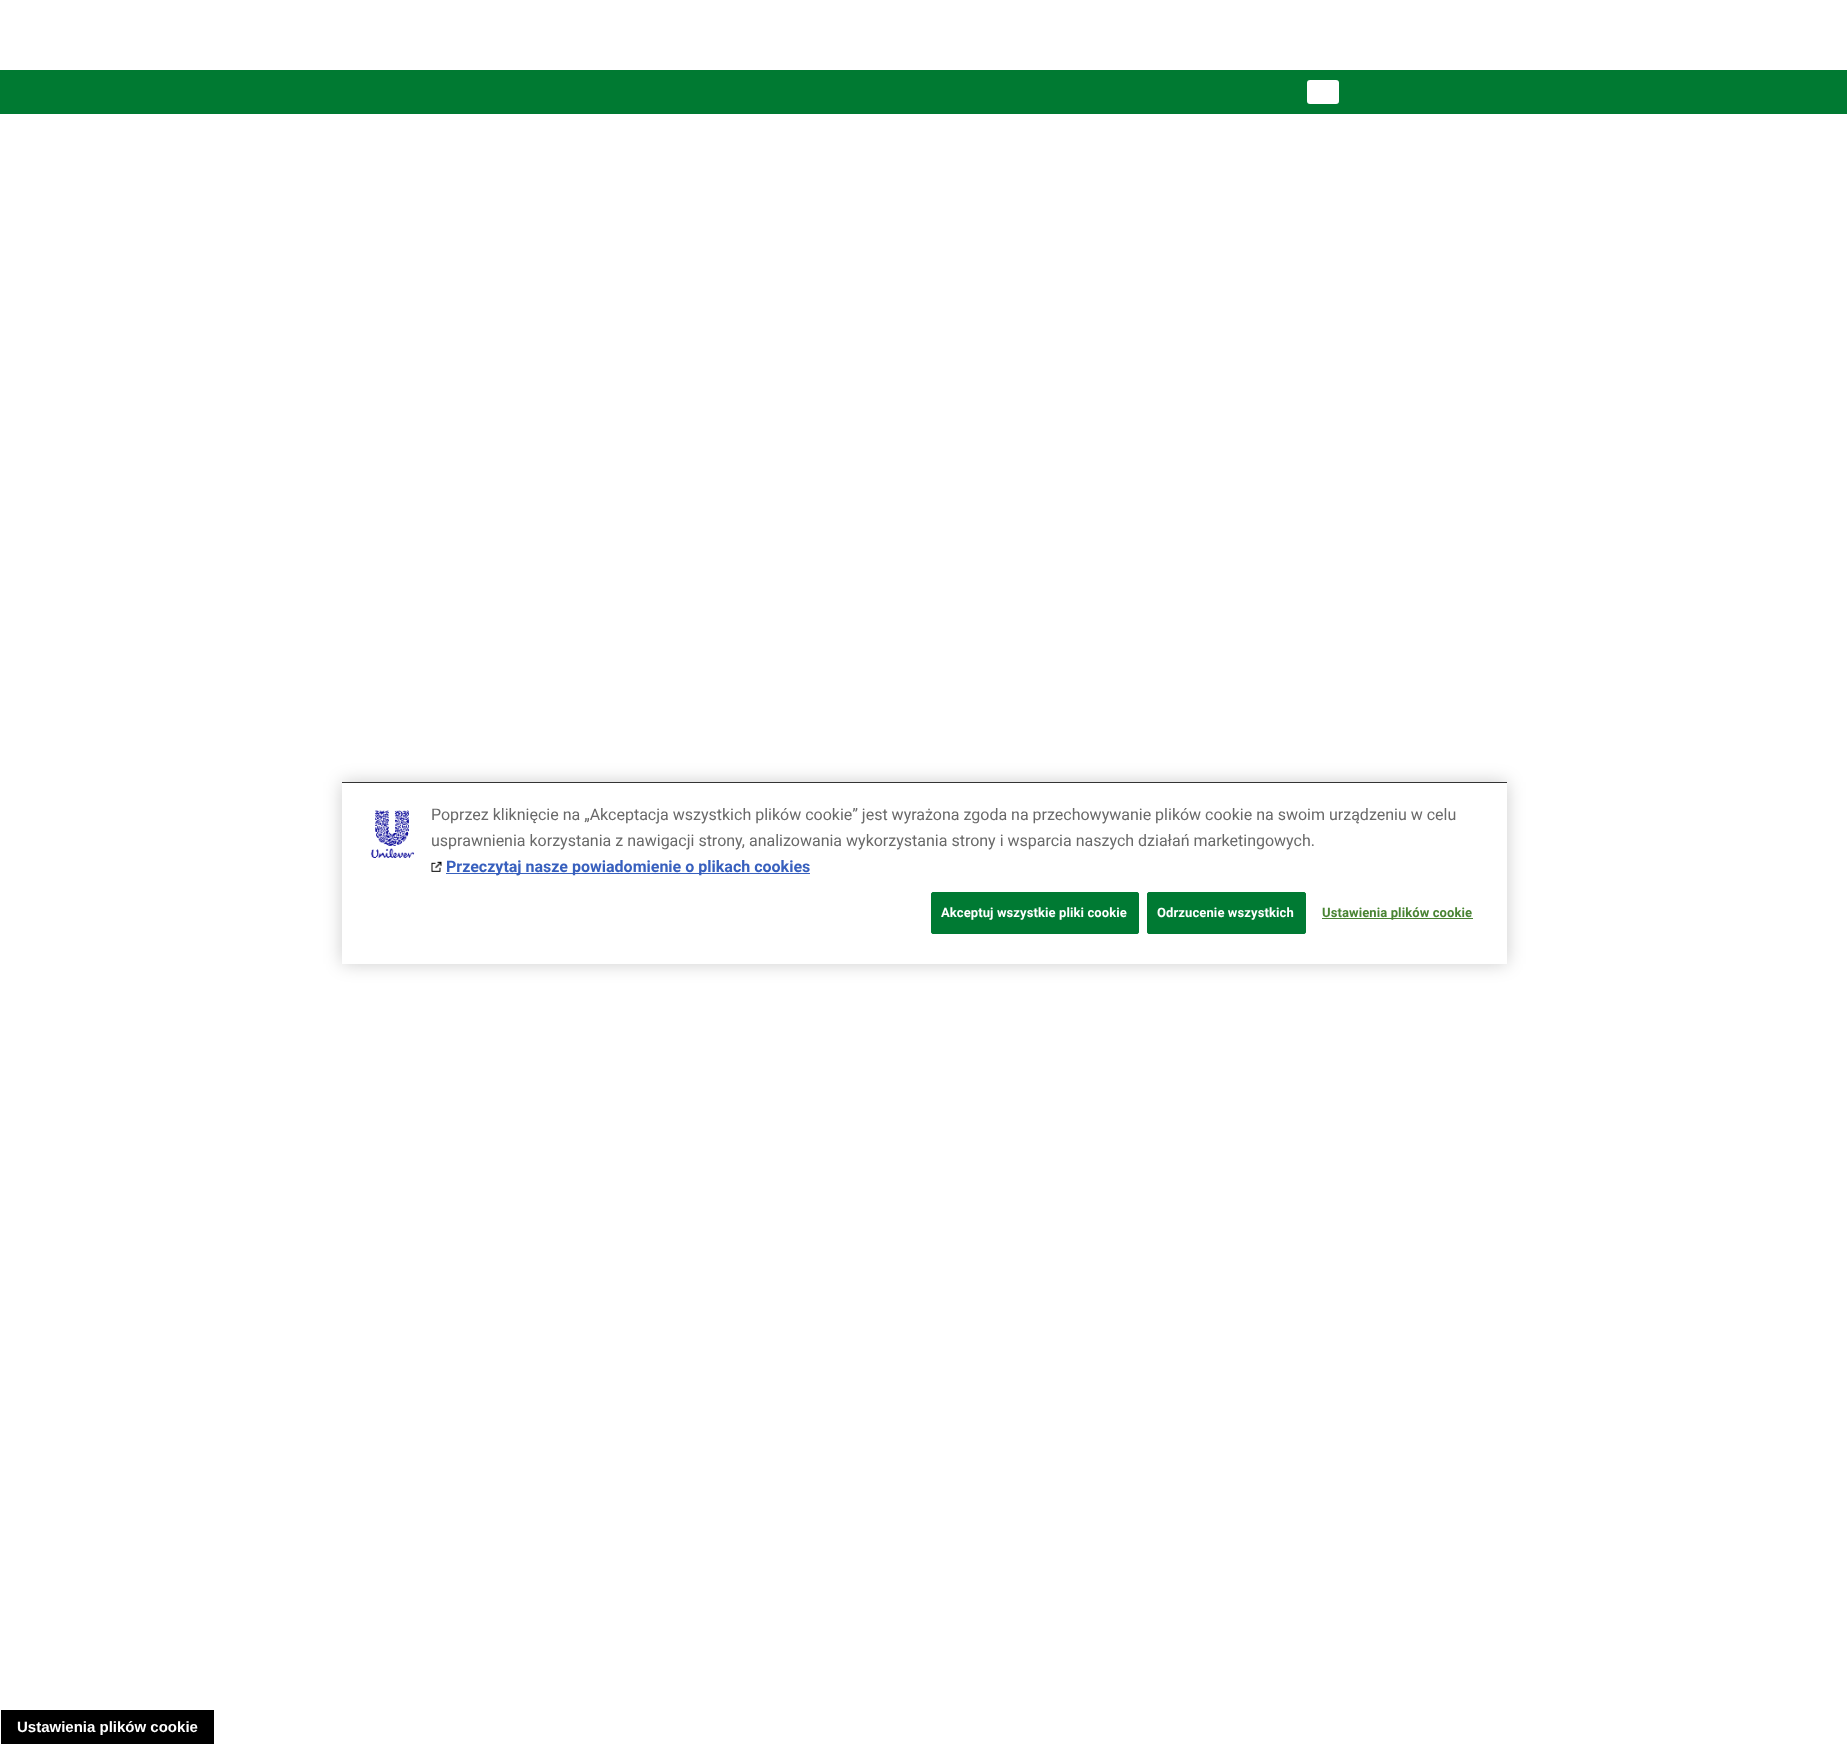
<!DOCTYPE html>
<meta charset="utf-8">
<style>body { margin: 0 } canvas { display: block }</style>
<canvas id="canvas" width="1847" height="1745"></canvas>
<img id="img1" src="images/1.png" hidden>
<img id="img2" src="images/2.png" hidden>
<script>
window.onload = function () {
    const canvas = document.getElementById('canvas');
    const context = canvas.getContext('2d');
    context.miterLimit = 4;
    context.fontKerning = 'normal';

    context.fillStyle = 'rgb(255, 255, 255)';
    context.fillRect(0, 0, 1847, 1745);
    context.fillStyle = 'rgb(0, 122, 50)';
    context.fillRect(0, 70, 1847, 44);
    context.fillStyle = 'rgb(255, 255, 255)';
    context.beginPath();
    context.roundRect(1307, 80, 32, 24, 3);
    context.fill();
    context.fillStyle = 'rgba(0, 0, 0, 0.2)';
    context.filter = 'blur(9px)';
    context.beginPath();
    context.rect(342, 782, 1165, 182);
    context.fill();
    context.filter = 'none';
    context.fillStyle = 'rgb(255, 255, 255)';
    context.fillRect(342, 783, 1165, 181);
    context.fillStyle = 'rgb(51, 51, 51)';
    context.fillRect(342, 782, 1165, 1);
    context.drawImage(document.getElementById('img1'), 370, 810, 45, 48);
    context.drawImage(document.getElementById('img2'), 431, 861, 11, 11);
    context.fillStyle = 'rgb(56, 96, 190)';
    context.fillRect(446, 873, 364, 1);
    context.fillStyle = 'rgb(0, 122, 51)';
    context.beginPath();
    context.roundRect(931.5, 892.5, 207, 41, 1.5);
    context.fill();
    context.strokeStyle = 'rgb(0, 122, 51)';
    context.stroke();
    context.beginPath();
    context.roundRect(1147.5, 892.5, 158, 41, 1.5);
    context.fill();
    context.stroke();
    context.fillStyle = 'rgb(73, 132, 51)';
    context.fillRect(1322, 918, 151, 1);
    context.fillStyle = 'rgb(0, 0, 0)';
    context.fillRect(1, 1710, 213, 34);
    context.font = '16px Roboto';
    context.fillStyle = 'rgb(105, 105, 105)';
    context.fillText('Poprzez kliknięcie na „Akceptacja wszystkich plików cookie” jest wyrażona zgoda na przechowywanie plików cookie na swoim urządzeniu w celu', 431, 820);
    context.fillText('usprawnienia korzystania z nawigacji strony, analizowania wykorzystania strony i wsparcia naszych działań marketingowych.', 431, 846);
    context.font = 'bold 16px Roboto';
    context.fillStyle = 'rgb(56, 96, 190)';
    context.fillText('Przeczytaj nasze powiadomienie o plikach cookies', 446, 872);
    context.letterSpacing = '0.1px';
    context.font = 'bold 13px Roboto';
    context.fillStyle = 'rgb(255, 255, 255)';
    context.fillText('Akceptuj wszystkie pliki cookie', 941, 917);
    context.fillText('Odrzucenie wszystkich', 1157, 917);
    context.fillStyle = 'rgb(73, 132, 51)';
    context.fillText('Ustawienia plików cookie', 1322, 917);
    context.letterSpacing = '0px';
    context.font = 'bold 15px Liberation Sans';
    context.fillStyle = 'rgb(255, 255, 255)';
    context.fillText('Ustawienia plików cookie', 17, 1732);
};
</script>
